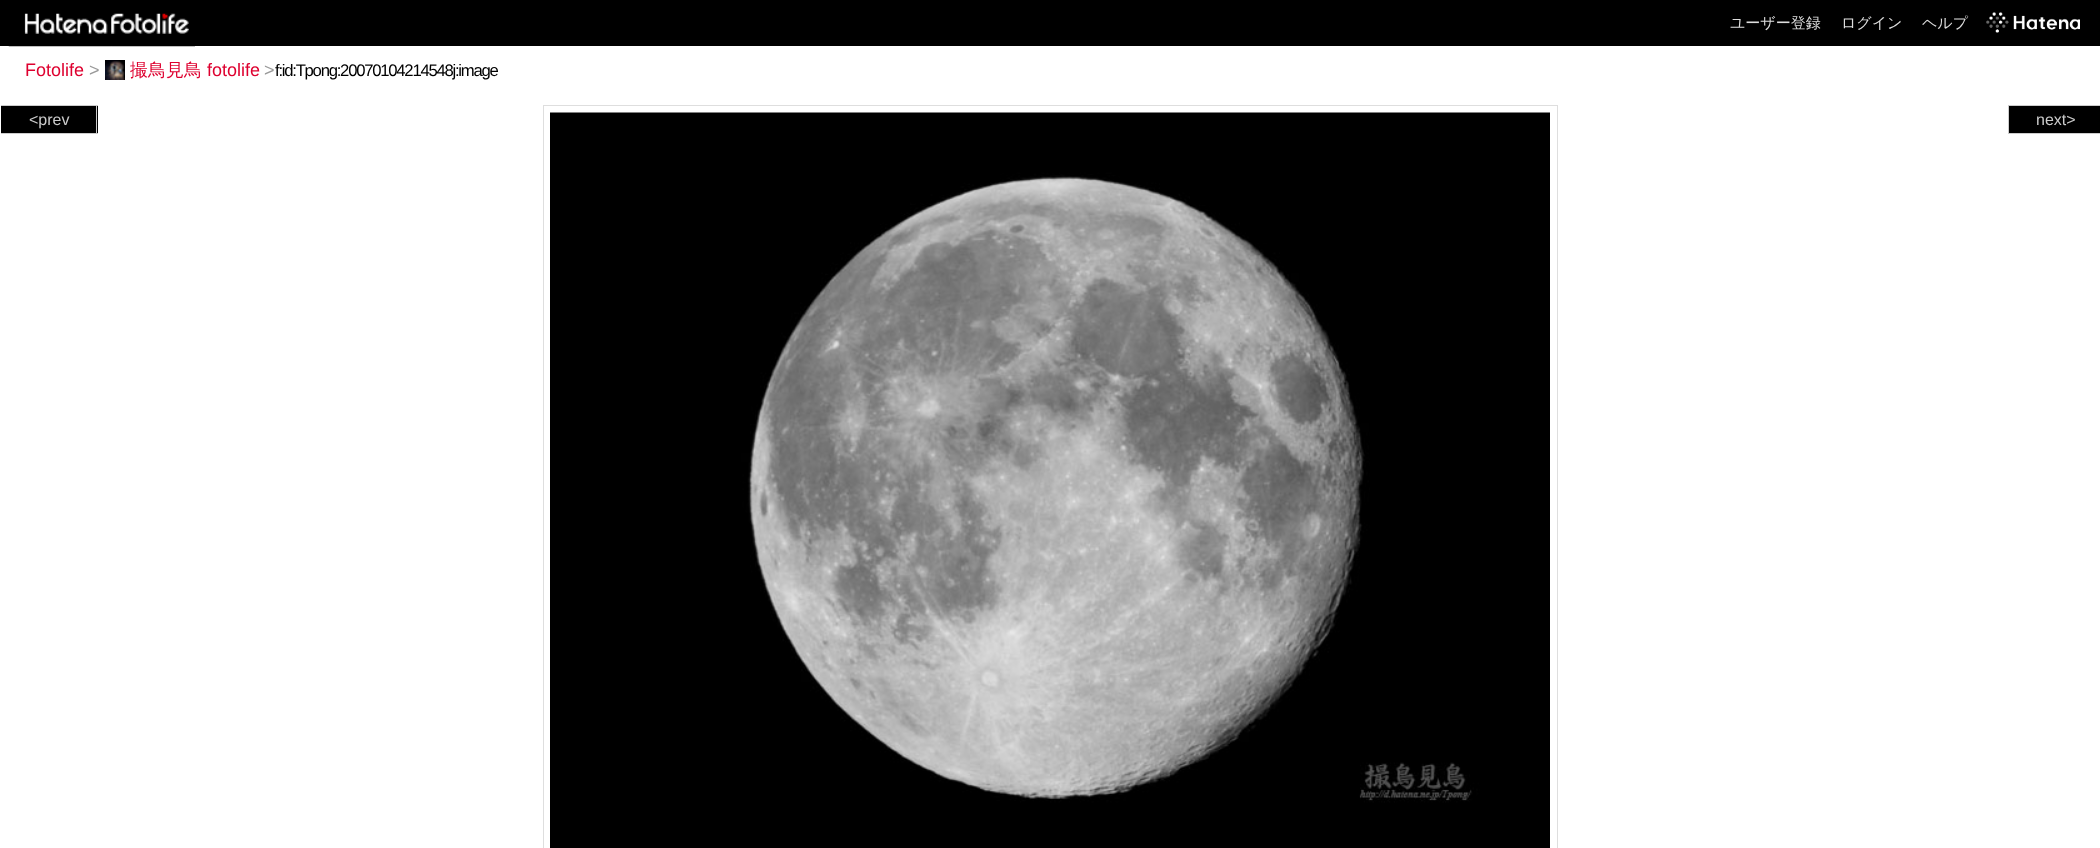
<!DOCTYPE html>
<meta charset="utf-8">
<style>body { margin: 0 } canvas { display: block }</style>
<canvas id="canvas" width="2100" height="848"></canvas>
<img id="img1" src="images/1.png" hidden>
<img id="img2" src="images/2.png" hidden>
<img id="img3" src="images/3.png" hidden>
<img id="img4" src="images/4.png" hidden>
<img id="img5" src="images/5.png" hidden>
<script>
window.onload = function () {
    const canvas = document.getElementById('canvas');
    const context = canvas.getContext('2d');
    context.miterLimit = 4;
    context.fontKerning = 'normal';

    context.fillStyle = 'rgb(255, 255, 255)';
    context.fillRect(0, 0, 2100, 848);
    context.fillStyle = 'rgb(0, 0, 0)';
    context.fillRect(0, 0, 2100, 46);
    context.drawImage(document.getElementById('img1'), 8, 13, 104, 34);
    context.drawImage(document.getElementById('img2'), 111, 13, 84, 34);
    context.drawImage(document.getElementById('img3'), 1986, 12, 94, 21);
    context.drawImage(document.getElementById('img4'), 105, 60, 20, 20);
    context.fillRect(1, 106, 97, 27);
    context.fillStyle = 'rgb(204, 204, 204)';
    context.fillRect(1, 105, 97, 1);
    context.fillRect(96, 105, 1, 29);
    context.fillRect(1, 133, 97, 1);
    context.strokeStyle = 'rgb(222, 222, 222)';
    context.strokeRect(543.5, 105.5, 1014, 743);
    context.drawImage(document.getElementById('img5'), 550, 112, 1000, 736);
    context.fillStyle = 'rgb(0, 0, 0)';
    context.fillRect(2009, 106, 91, 27);
    context.fillStyle = 'rgb(204, 204, 204)';
    context.fillRect(2008, 105, 92, 1);
    context.fillRect(2008, 133, 92, 1);
    context.fillRect(2008, 105, 1, 29);
    context.font = '500 15px WenQuanYi Zen Hei';
    context.fillStyle = 'rgb(221, 221, 221)';
    context.fillText('ユーザー登録', 1730, 28);
    context.fillText('ログイン', 1841, 28);
    context.fillText('ヘルプ', 1922, 28);
    context.font = '18px Liberation Sans';
    context.fillStyle = 'rgb(222, 0, 47)';
    context.fillText('Fotolife', 25, 76);
    context.fillStyle = 'rgb(153, 153, 153)';
    context.fillText('>', 89, 76);
    context.font = '500 18px WenQuanYi Zen Hei';
    context.fillStyle = 'rgb(222, 0, 47)';
    context.fillText('撮鳥見鳥', 130, 76);
    context.font = '18px Liberation Sans';
    context.fillText('fotolife', 207, 76);
    context.fillStyle = 'rgb(153, 153, 153)';
    context.fillText('>', 264, 76);
    context.letterSpacing = '-1.25px';
    context.font = '16.7px Liberation Sans';
    context.fillStyle = 'rgb(0, 0, 0)';
    context.fillText('f:id:Tpong:20070104214548j:image', 275, 76);
    context.letterSpacing = '0px';
    context.font = '16px Liberation Sans';
    context.fillStyle = 'rgb(204, 204, 204)';
    context.fillText('<prev', 29, 125);
    context.fillText('next>', 2036, 125);
};
</script>
